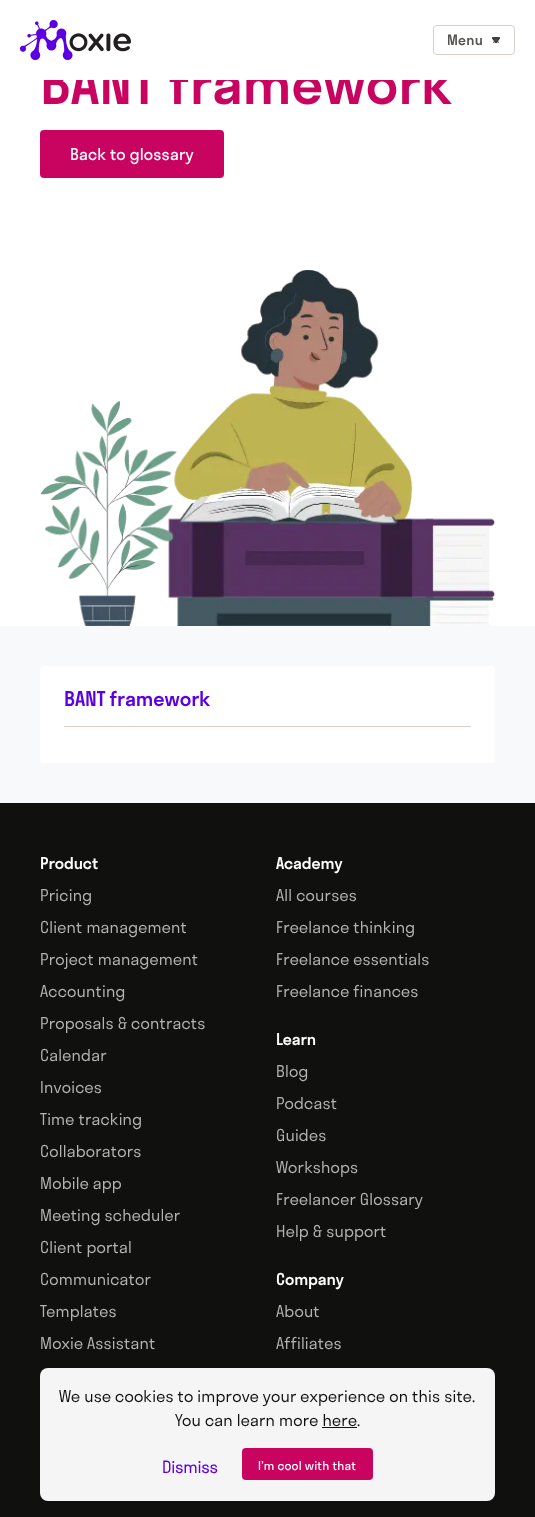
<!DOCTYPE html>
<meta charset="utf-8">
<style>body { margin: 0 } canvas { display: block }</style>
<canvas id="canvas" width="535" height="1517"></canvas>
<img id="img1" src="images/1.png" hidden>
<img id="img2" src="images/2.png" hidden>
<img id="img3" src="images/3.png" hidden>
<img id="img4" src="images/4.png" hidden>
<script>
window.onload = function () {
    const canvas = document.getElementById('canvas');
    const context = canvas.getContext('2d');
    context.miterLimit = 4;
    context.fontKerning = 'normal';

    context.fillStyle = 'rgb(255, 255, 255)';
    context.fillRect(0, 0, 535, 1517);
    context.drawImage(document.getElementById('img1'), 20, 20, 111, 40);
    context.beginPath();
    context.roundRect(433.5, 25.5, 81, 29, 3.5);
    context.strokeStyle = 'rgb(214, 209, 203)';
    context.stroke();
    context.drawImage(document.getElementById('img2'), 492, 37, 8, 7);
    context.drawImage(document.getElementById('img3'), 493, 37, 6, 6);
    context.fillStyle = 'rgb(201, 3, 96)';
    context.beginPath();
    context.roundRect(40, 130, 184, 48, 4);
    context.fill();
    context.drawImage(document.getElementById('img4'), 40, 270, 455, 356);
    context.fillStyle = 'rgb(248, 249, 250)';
    context.fillRect(0, 626, 535, 177);
    context.fillStyle = 'rgb(255, 255, 255)';
    context.beginPath();
    context.roundRect(40, 666, 455, 97, 4);
    context.fill();
    context.fillStyle = 'rgb(214, 209, 203)';
    context.fillRect(64, 726, 407, 1);
    context.fillStyle = 'rgb(16, 17, 15)';
    context.fillRect(0, 803, 535, 714);
    context.fillStyle = 'rgb(245, 245, 245)';
    context.beginPath();
    context.roundRect(40, 1368, 455, 133, 8);
    context.fill();
    context.fillStyle = 'rgb(16, 17, 15)';
    context.fillRect(322, 1427, 35, 1);
    context.fillStyle = 'rgb(201, 3, 96)';
    context.beginPath();
    context.roundRect(242, 1448, 131, 32, 4);
    context.fill();
    context.letterSpacing = '0.2px';
    context.font = '500 14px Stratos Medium';
    context.fillStyle = 'rgb(86, 84, 81)';
    context.fillText('Menu', 447, 45);
    context.letterSpacing = '-0.1px';
    context.font = '500 56px Stratos Medium';
    context.fillStyle = 'rgb(201, 3, 96)';
    context.fillText('BANT framework', 40, 104);
    context.fillStyle = 'rgb(255, 255, 255)';
    context.fillRect(43, 61, 408, 19);
    context.letterSpacing = '0.2px';
    context.font = '16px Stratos';
    context.fillText('Back to glossary', 70, 160);
    context.letterSpacing = '-0.1px';
    context.font = '500 20px Stratos Medium';
    context.fillStyle = 'rgb(92, 0, 226)';
    context.fillText('BANT framework', 64, 706);
    context.font = '500 16px Stratos Medium';
    context.fillStyle = 'rgb(255, 255, 255)';
    context.fillText('Product', 40, 869);
    context.letterSpacing = '0.2px';
    context.font = '300 16px "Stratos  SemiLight"';
    context.fillStyle = 'rgb(179, 179, 179)';
    context.fillText('Pricing', 40, 901);
    context.fillText('Client management', 40, 933);
    context.fillText('Project management', 40, 965);
    context.fillText('Accounting', 40, 997);
    context.fillText('Proposals & contracts', 40, 1029);
    context.fillText('Calendar', 40, 1061);
    context.fillText('Invoices', 40, 1093);
    context.fillText('Time tracking', 40, 1125);
    context.fillText('Collaborators', 40, 1157);
    context.fillText('Mobile app', 40, 1189);
    context.fillText('Meeting scheduler', 40, 1221);
    context.fillText('Client portal', 40, 1253);
    context.fillText('Communicator', 40, 1285);
    context.fillText('Templates', 40, 1317);
    context.fillText('Moxie Assistant', 40, 1349);
    context.letterSpacing = '-0.1px';
    context.font = '500 16px Stratos Medium';
    context.fillStyle = 'rgb(255, 255, 255)';
    context.fillText('Academy', 276, 869);
    context.letterSpacing = '0.2px';
    context.font = '300 16px "Stratos  SemiLight"';
    context.fillStyle = 'rgb(179, 179, 179)';
    context.fillText('All courses', 276, 901);
    context.fillText('Freelance thinking', 276, 933);
    context.fillText('Freelance essentials', 276, 965);
    context.fillText('Freelance finances', 276, 997);
    context.letterSpacing = '-0.1px';
    context.font = '500 16px Stratos Medium';
    context.fillStyle = 'rgb(255, 255, 255)';
    context.fillText('Learn', 276, 1045);
    context.letterSpacing = '0.2px';
    context.font = '300 16px "Stratos  SemiLight"';
    context.fillStyle = 'rgb(179, 179, 179)';
    context.fillText('Blog', 276, 1077);
    context.fillText('Podcast', 276, 1109);
    context.fillText('Guides', 276, 1141);
    context.fillText('Workshops', 276, 1173);
    context.fillText('Freelancer Glossary', 276, 1205);
    context.fillText('Help & support', 276, 1237);
    context.letterSpacing = '-0.1px';
    context.font = '500 16px Stratos Medium';
    context.fillStyle = 'rgb(255, 255, 255)';
    context.fillText('Company', 276, 1285);
    context.letterSpacing = '0.2px';
    context.font = '300 16px "Stratos  SemiLight"';
    context.fillStyle = 'rgb(179, 179, 179)';
    context.fillText('About', 276, 1317);
    context.fillText('Affiliates', 276, 1349);
    context.fillStyle = 'rgb(16, 17, 15)';
    context.fillText('We use cookies to improve your experience on this site.', 59, 1402);
    context.fillText('You can learn more here.', 175, 1426);
    context.font = 'bold 16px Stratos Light';
    context.fillStyle = 'rgb(92, 0, 226)';
    context.fillText('Dismiss', 162, 1473);
    context.font = '12px Stratos';
    context.fillStyle = 'rgb(255, 255, 255)';
    context.fillText('I’m cool with that', 258, 1470);
};
</script>
